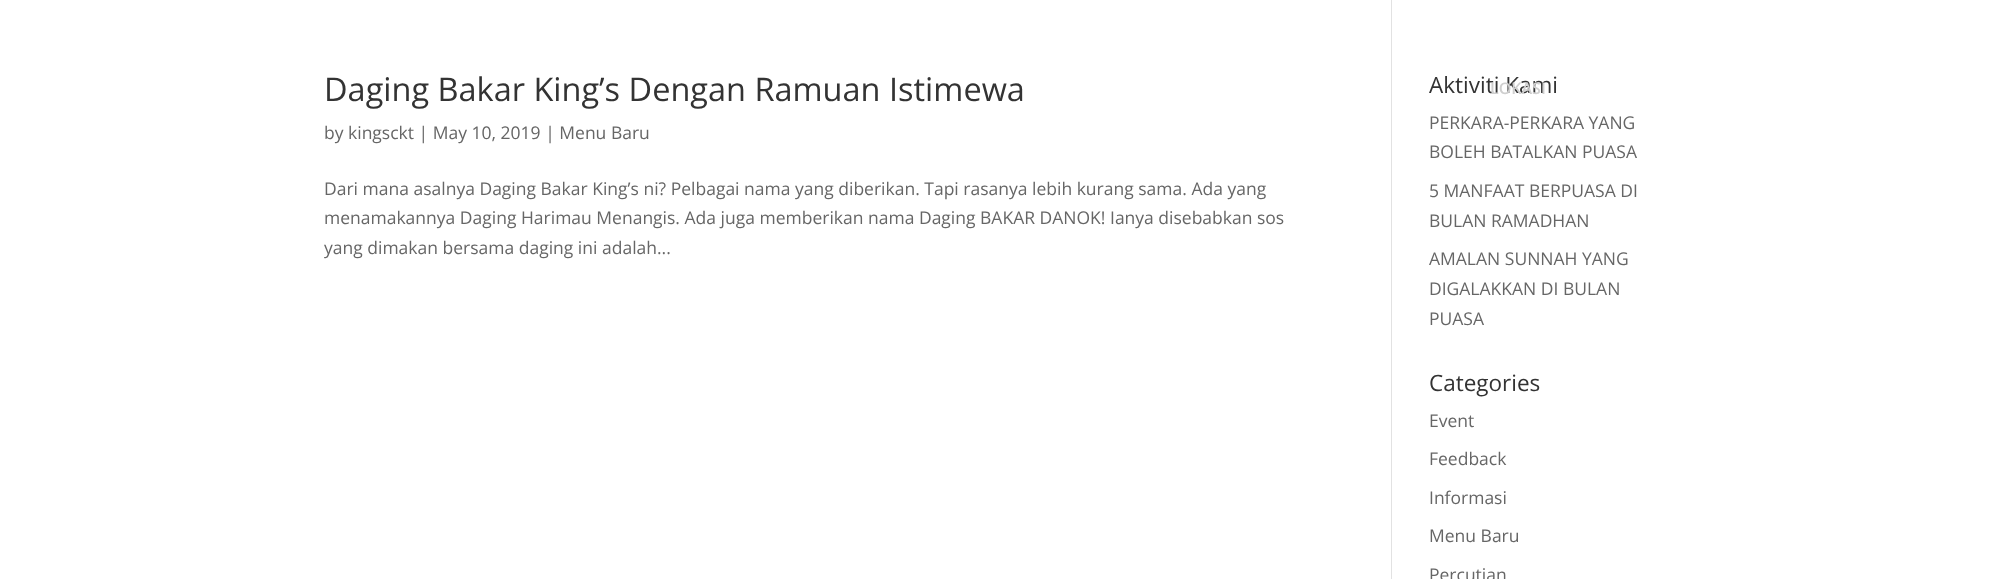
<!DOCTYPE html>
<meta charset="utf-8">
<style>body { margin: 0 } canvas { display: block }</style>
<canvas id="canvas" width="1997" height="579"></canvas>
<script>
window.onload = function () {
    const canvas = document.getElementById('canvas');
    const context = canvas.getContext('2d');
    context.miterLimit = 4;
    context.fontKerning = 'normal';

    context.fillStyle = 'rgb(255, 255, 255)';
    context.fillRect(0, 0, 1997, 579);
    context.fillStyle = 'rgb(226, 226, 226)';
    context.fillRect(1391, 0, 1, 579);
    context.font = '32.5px Open Sans';
    context.fillStyle = 'rgb(51, 51, 51)';
    context.fillText('Daging Bakar King’s Dengan Ramuan Istimewa', 324, 101);
    context.font = '17.5px Open Sans';
    context.fillStyle = 'rgb(102, 102, 102)';
    context.fillText('by kingsckt | May 10, 2019 | Menu Baru', 324, 139);
    context.fillText('Dari mana asalnya Daging Bakar King’s ni? Pelbagai nama yang diberikan. Tapi rasanya lebih kurang sama. Ada yang', 324, 195);
    context.fillText('menamakannya Daging Harimau Menangis. Ada juga memberikan nama Daging BAKAR DANOK! Ianya disebabkan sos', 324, 224);
    context.fillText('yang dimakan bersama daging ini adalah...', 324, 254);
    context.font = '22.5px Open Sans';
    context.fillStyle = 'rgb(51, 51, 51)';
    context.fillText('Aktiviti Kami', 1429, 93);
    context.font = '17.5px Open Sans';
    context.fillStyle = 'rgb(102, 102, 102)';
    context.fillText('PERKARA-PERKARA YANG', 1429, 129);
    context.fillText('BOLEH BATALKAN PUASA', 1429, 158);
    context.fillText('5 MANFAAT BERPUASA DI', 1429, 197);
    context.fillText('BULAN RAMADHAN', 1429, 227);
    context.fillText('AMALAN SUNNAH YANG', 1429, 265);
    context.fillText('DIGALAKKAN DI BULAN', 1429, 295);
    context.fillText('PUASA', 1429, 325);
    context.font = '22.5px Open Sans';
    context.fillStyle = 'rgb(51, 51, 51)';
    context.fillText('Categories', 1429, 391);
    context.font = '17.5px Open Sans';
    context.fillStyle = 'rgb(102, 102, 102)';
    context.fillText('Event', 1429, 427);
    context.fillText('Feedback', 1429, 465);
    context.fillText('Informasi', 1429, 504);
    context.fillText('Menu Baru', 1429, 542);
    context.fillText('Percutian', 1429, 581);
    context.font = '600 16px Open Sans';
    context.fillStyle = 'rgb(207, 207, 207)';
    context.fillText('LOKASI', 1490, 94);
};
</script>
